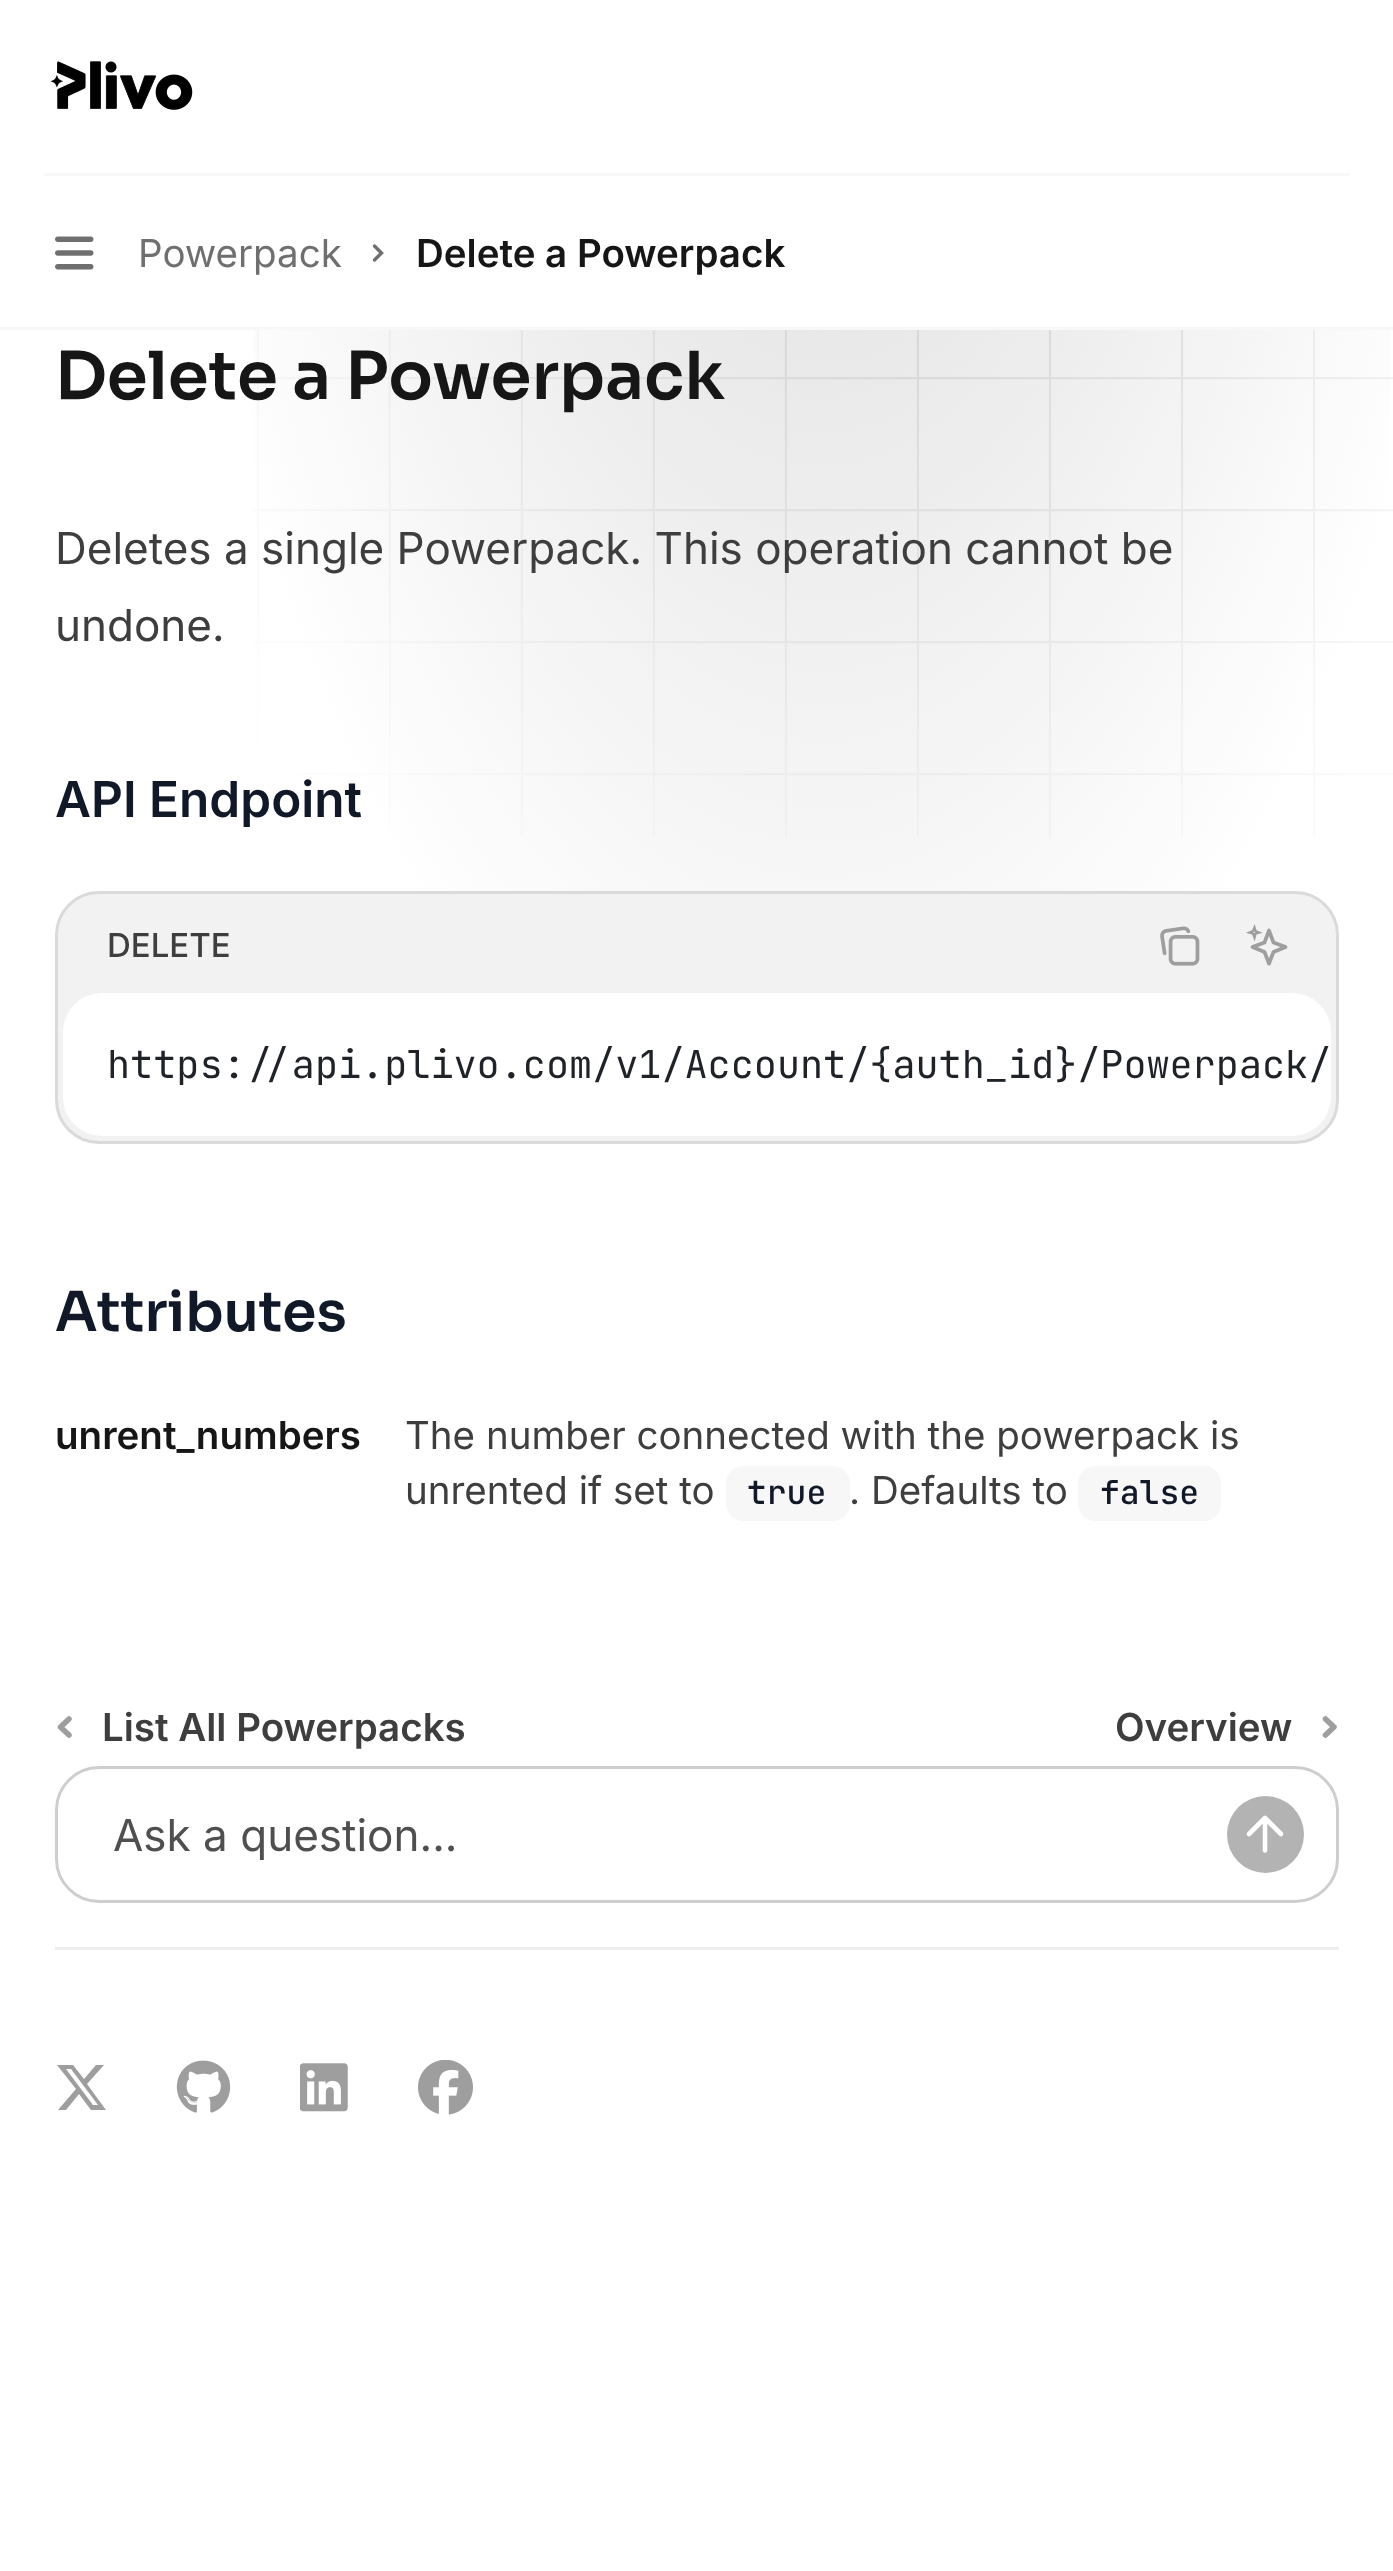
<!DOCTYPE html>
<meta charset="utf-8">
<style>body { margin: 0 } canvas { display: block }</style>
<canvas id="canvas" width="1393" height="2571"></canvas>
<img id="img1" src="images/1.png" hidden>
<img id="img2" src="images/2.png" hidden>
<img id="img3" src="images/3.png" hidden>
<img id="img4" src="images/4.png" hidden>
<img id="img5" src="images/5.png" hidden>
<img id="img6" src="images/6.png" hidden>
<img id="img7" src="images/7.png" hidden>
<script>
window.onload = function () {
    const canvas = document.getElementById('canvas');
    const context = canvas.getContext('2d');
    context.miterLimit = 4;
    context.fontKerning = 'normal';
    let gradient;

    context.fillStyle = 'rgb(255, 255, 255)';
    context.fillRect(0, 0, 1393, 2571);
    context.fillStyle = 'rgb(248, 248, 248)';
    context.fillRect(44, 173, 1306, 3);
    context.drawImage(document.getElementById('img1'), 50, 61, 143, 49);
    context.drawImage(document.getElementById('img2'), 55, 236, 39, 34);
    context.beginPath();
    context.moveTo(374.5, 246);
    context.lineTo(381.5, 253);
    context.lineTo(374.5, 260);
    context.strokeStyle = 'rgb(111, 111, 111)';
    context.lineWidth = 3.4;
    context.lineCap = 'round';
    context.stroke();
    context.fillRect(0, 327, 1393, 3);
    gradient = context.createRadialGradient(822, -171.49, 0, 822, -171.49, 692);
    gradient.addColorStop(0.39, 'rgb(230, 230, 230)');
    gradient.addColorStop(1, 'rgb(255, 255, 255)');
    context.fillStyle = gradient;
    context.beginPath();
    context.rect(253, 330, 1137, 782);
    context.save();
    context.clip();
    context.scale(1, 1606 / 692);
    context.fillRect(0, 0, 1393, 1108);
    context.restore();
    context.drawImage(document.getElementById('img3'), 253, 330, 1140, 507);
    context.fillStyle = 'rgb(242, 242, 242)';
    context.beginPath();
    context.roundRect(55, 891, 1284, 253, 44);
    context.fill();
    context.beginPath();
    context.roundRect(56.5, 892.5, 1281, 250, 42.5);
    context.strokeStyle = 'rgba(10, 10, 10, 0.1)';
    context.lineWidth = 3;
    context.stroke();
    context.drawImage(document.getElementById('img4'), 1160, 926, 40, 40);
    context.beginPath();
    context.moveTo(1254.5, 927.5);
    context.lineTo(1255.5, 931);
    context.lineTo(1259, 932.5);
    context.lineTo(1255.5, 933.5);
    context.lineTo(1254.5, 937.5);
    context.lineTo(1253, 933.5);
    context.lineTo(1249.5, 932.5);
    context.lineTo(1253, 931);
    context.closePath();
    context.strokeStyle = 'rgb(158, 158, 158)';
    context.lineWidth = 2.4;
    context.lineCap = 'butt';
    context.stroke();
    context.beginPath();
    context.moveTo(1269, 930.5);
    context.lineTo(1273.5, 942.5);
    context.lineTo(1285.5, 947);
    context.lineTo(1273.5, 952);
    context.lineTo(1269, 963.5);
    context.lineTo(1264.5, 952);
    context.lineTo(1252.5, 947);
    context.lineTo(1264.5, 942.5);
    context.closePath();
    context.lineWidth = 3.7;
    context.lineCap = 'round';
    context.lineJoin = 'round';
    context.stroke();
    context.fillStyle = 'rgb(255, 255, 255)';
    context.beginPath();
    context.roundRect(63, 993, 1268, 143, 39);
    context.fill();
    context.fillStyle = 'rgb(247, 247, 247)';
    context.beginPath();
    context.roundRect(726, 1466, 124, 55, 17);
    context.fill();
    context.beginPath();
    context.roundRect(1078, 1466, 143, 55, 17);
    context.fill();
    context.beginPath();
    context.moveTo(69, 1719);
    context.lineTo(60.5, 1727);
    context.lineTo(69, 1735);
    context.lineWidth = 5.5;
    context.stroke();
    context.beginPath();
    context.moveTo(1325.5, 1735);
    context.lineTo(1334, 1727);
    context.lineTo(1325.5, 1719);
    context.stroke();
    context.beginPath();
    context.roundRect(56.5, 1767.5, 1281, 134, 42.5);
    context.strokeStyle = 'rgb(206, 206, 206)';
    context.lineWidth = 3;
    context.lineJoin = 'miter';
    context.stroke();
    context.fillStyle = 'rgb(179, 179, 179)';
    context.beginPath();
    context.arc(1265.5, 1834.5, 38.5, 0, 2 * Math.PI);
    context.fill();
    context.beginPath();
    context.moveTo(1249, 1834);
    context.lineTo(1265, 1818);
    context.lineTo(1281, 1834);
    context.moveTo(1265, 1850.5);
    context.lineTo(1265, 1818);
    context.strokeStyle = 'rgb(255, 255, 255)';
    context.lineWidth = 4.6;
    context.lineJoin = 'round';
    context.stroke();
    context.fillStyle = 'rgb(238, 238, 238)';
    context.fillRect(55, 1947, 1284, 3);
    context.fillStyle = 'rgb(158, 158, 158)';
    context.beginPath();
    context.moveTo(96, 2065);
    context.lineTo(104, 2065);
    context.lineTo(87, 2084);
    context.lineTo(106, 2110);
    context.lineTo(91, 2110);
    context.lineTo(79, 2094);
    context.lineTo(66, 2110);
    context.lineTo(58, 2110);
    context.lineTo(76, 2089);
    context.lineTo(57, 2065);
    context.lineTo(73, 2065);
    context.lineTo(84, 2079);
    context.closePath();
    context.moveTo(93, 2105);
    context.lineTo(98, 2105);
    context.lineTo(71, 2069);
    context.lineTo(66, 2069);
    context.closePath();
    context.fill();
    context.drawImage(document.getElementById('img5'), 176, 2060, 55, 53);
    context.drawImage(document.getElementById('img6'), 300, 2063, 48, 49);
    context.drawImage(document.getElementById('img7'), 418, 2060, 55, 55);
    context.font = '38.5px Inter';
    context.fillStyle = 'rgb(111, 111, 111)';
    context.fillText('Powerpack', 138, 267);
    context.font = '600 38.5px Inter';
    context.fillStyle = 'rgb(22, 22, 22)';
    context.fillText('Delete a Powerpack', 416, 267);
    context.font = '600 66px Sora';
    context.fillText('Delete a Powerpack', 55, 399);
    context.font = '44px Inter';
    context.fillStyle = 'rgb(62, 62, 62)';
    context.fillText('Deletes a single Powerpack. This operation cannot be', 55, 564);
    context.fillText('undone.', 55, 641);
    context.font = '600 49.5px Inter';
    context.fillStyle = 'rgb(17, 24, 39)';
    context.fillText('API Endpoint', 55, 817);
    context.font = '500 33px Inter';
    context.fillStyle = 'rgb(62, 62, 62)';
    context.fillText('DELETE', 107, 957);
    context.font = '38.5px JetBrains Mono';
    context.fillStyle = 'rgb(31, 35, 40)';
    context.fillText('https://api.plivo.com/v1/Account/{auth_id}/Powerpack/', 107, 1078);
    context.font = '600 55px Sora';
    context.fillStyle = 'rgb(17, 24, 39)';
    context.fillText('Attributes', 55, 1331);
    context.font = '600 38.5px Inter';
    context.fillStyle = 'rgb(22, 22, 22)';
    context.fillText('unrent_numbers', 55, 1449);
    context.font = '38.5px Inter';
    context.fillStyle = 'rgb(62, 62, 62)';
    context.fillText('The number connected with the powerpack is', 405, 1449);
    context.fillText('unrented if set to', 405, 1504);
    context.font = '500 33px JetBrains Mono';
    context.fillStyle = 'rgb(17, 24, 39)';
    context.fillText('true', 747, 1504);
    context.font = '38.5px Inter';
    context.fillStyle = 'rgb(62, 62, 62)';
    context.fillText('. Defaults to', 849, 1504);
    context.font = '500 33px JetBrains Mono';
    context.fillStyle = 'rgb(17, 24, 39)';
    context.fillText('false', 1100, 1504);
    context.font = '600 38.5px Inter';
    context.fillStyle = 'rgb(62, 62, 62)';
    context.fillText('List All Powerpacks', 102, 1741);
    context.fillText('Overview', 1115, 1741);
    context.font = '44px Inter';
    context.fillStyle = 'rgb(79, 79, 79)';
    context.fillText('Ask a question...', 113, 1851);
};
</script>
